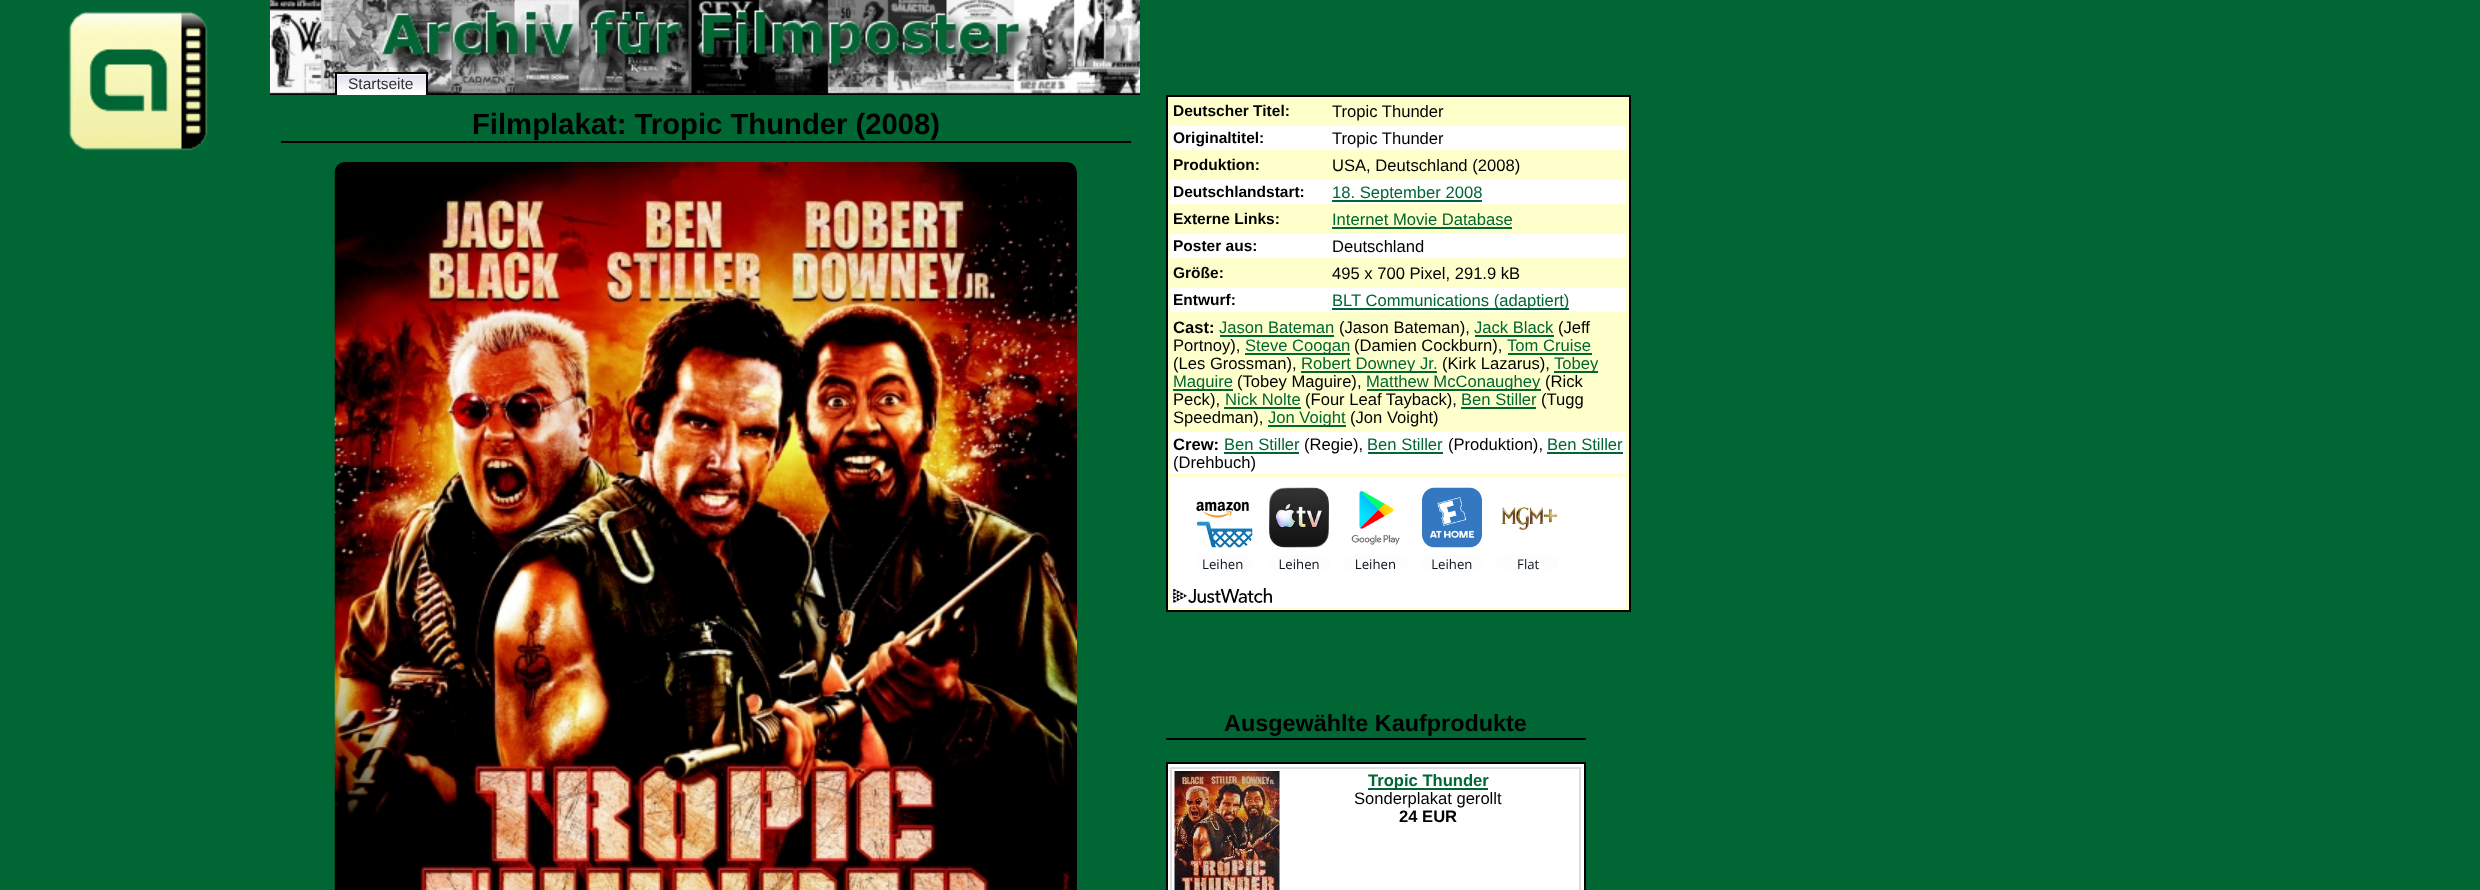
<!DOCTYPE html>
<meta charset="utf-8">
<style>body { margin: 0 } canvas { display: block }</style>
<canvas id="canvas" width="2480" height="890"></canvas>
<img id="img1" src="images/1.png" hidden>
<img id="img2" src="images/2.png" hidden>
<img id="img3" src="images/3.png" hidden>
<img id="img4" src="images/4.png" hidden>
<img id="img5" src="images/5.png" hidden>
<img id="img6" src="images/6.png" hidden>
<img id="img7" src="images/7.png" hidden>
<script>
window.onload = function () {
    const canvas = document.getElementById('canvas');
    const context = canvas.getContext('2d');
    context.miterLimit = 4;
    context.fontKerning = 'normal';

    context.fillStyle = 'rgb(0, 102, 51)';
    context.fillRect(0, 0, 2480, 890);
    context.drawImage(document.getElementById('img1'), 68, 11, 140, 140);
    context.fillStyle = 'rgb(0, 0, 0)';
    context.fillRect(270, 94, 870, 1);
    context.drawImage(document.getElementById('img2'), 270, 0, 870, 94);
    context.fillStyle = 'rgb(255, 255, 255)';
    context.fillRect(337, 91, 89, 4);
    context.drawImage(document.getElementById('img3'), 334, 73, 92, 19);
    context.fillStyle = 'rgb(0, 0, 0)';
    context.fillRect(335, 72, 93, 2);
    context.fillRect(426, 72, 2, 23);
    context.fillRect(335, 72, 2, 23);
    context.fillRect(281, 141, 850, 2);
    context.fillStyle = 'rgb(255, 255, 204)';
    context.beginPath();
    context.rect(1167, 96, 463, 515);
    context.fill();
    context.strokeStyle = 'rgb(0, 0, 0)';
    context.lineWidth = 2;
    context.stroke();
    context.fillStyle = 'rgb(255, 255, 255)';
    context.fillRect(1170, 126, 456, 24);
    context.fillRect(1170, 180, 456, 24);
    context.fillStyle = 'rgb(0, 102, 51)';
    context.fillRect(1332, 200, 150, 2);
    context.fillRect(1332, 227, 180, 2);
    context.fillStyle = 'rgb(255, 255, 255)';
    context.fillRect(1170, 234, 456, 24);
    context.fillRect(1170, 288, 456, 24);
    context.fillStyle = 'rgb(0, 102, 51)';
    context.fillRect(1332, 308, 237, 2);
    context.fillRect(1220, 335, 114, 2);
    context.fillRect(1475, 335, 79, 2);
    context.fillRect(1245, 353, 105, 2);
    context.fillRect(1508, 353, 84, 2);
    context.fillRect(1301, 371, 136, 2);
    context.fillRect(1554, 371, 44, 2);
    context.fillRect(1173, 389, 60, 2);
    context.fillRect(1367, 389, 174, 2);
    context.fillRect(1224, 407, 77, 2);
    context.fillRect(1461, 407, 75, 2);
    context.fillRect(1268, 425, 78, 2);
    context.fillStyle = 'rgb(255, 255, 255)';
    context.fillRect(1170, 432, 456, 42);
    context.fillStyle = 'rgb(0, 102, 51)';
    context.fillRect(1224, 452, 75, 2);
    context.fillRect(1368, 452, 75, 2);
    context.fillRect(1547, 452, 76, 2);
    context.fillStyle = 'rgb(255, 255, 255)';
    context.fillRect(1170, 477, 456, 131);
    context.drawImage(document.getElementById('img4'), 1196, 487, 362, 83);
    context.drawImage(document.getElementById('img5'), 1173, 588, 99, 15);
    context.drawImage(document.getElementById('img6'), 334, 162, 743, 728);
    context.fillStyle = 'rgb(0, 0, 0)';
    context.fillRect(1166, 738, 420, 2);
    context.fillStyle = 'rgb(255, 255, 255)';
    context.beginPath();
    context.rect(1167, 763, 418, 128);
    context.fill();
    context.stroke();
    context.strokeStyle = 'rgb(221, 221, 221)';
    context.strokeRect(1171, 768, 409, 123);
    context.drawImage(document.getElementById('img7'), 1174, 771, 106, 119);
    context.fillStyle = 'rgb(0, 102, 51)';
    context.fillRect(1368, 788, 120, 2);
    context.font = '15.5px Liberation Sans';
    context.fillStyle = 'rgb(51, 51, 51)';
    context.fillText('Startseite', 348, 89);
    context.font = 'bold 29.25px Liberation Sans';
    context.fillStyle = 'rgb(0, 0, 0)';
    context.fillText('Filmplakat: Tropic Thunder (2008)', 472, 134);
    context.font = 'bold 15.5px Liberation Sans';
    context.fillText('Deutscher Titel:', 1173, 116);
    context.font = '16.6px Liberation Sans';
    context.fillText('Tropic Thunder', 1332, 117);
    context.font = 'bold 15.5px Liberation Sans';
    context.fillText('Originaltitel:', 1173, 143);
    context.font = '16.6px Liberation Sans';
    context.fillText('Tropic Thunder', 1332, 144);
    context.font = 'bold 15.5px Liberation Sans';
    context.fillText('Produktion:', 1173, 170);
    context.font = '16.6px Liberation Sans';
    context.fillText('USA, Deutschland (2008)', 1332, 171);
    context.font = 'bold 15.5px Liberation Sans';
    context.fillText('Deutschlandstart:', 1173, 197);
    context.font = '16.6px Liberation Sans';
    context.fillStyle = 'rgb(0, 102, 51)';
    context.fillText('18. September 2008', 1332, 198);
    context.font = 'bold 15.5px Liberation Sans';
    context.fillStyle = 'rgb(0, 0, 0)';
    context.fillText('Externe Links:', 1173, 224);
    context.font = '16.6px Liberation Sans';
    context.fillStyle = 'rgb(0, 102, 51)';
    context.fillText('Internet Movie Database', 1332, 225);
    context.font = 'bold 15.5px Liberation Sans';
    context.fillStyle = 'rgb(0, 0, 0)';
    context.fillText('Poster aus:', 1173, 251);
    context.font = '16.6px Liberation Sans';
    context.fillText('Deutschland', 1332, 252);
    context.font = 'bold 15.5px Liberation Sans';
    context.fillText('Größe:', 1173, 278);
    context.font = '16.6px Liberation Sans';
    context.fillText('495 x 700 Pixel, 291.9 kB', 1332, 279);
    context.font = 'bold 15.5px Liberation Sans';
    context.fillText('Entwurf:', 1173, 305);
    context.font = '16.6px Liberation Sans';
    context.fillStyle = 'rgb(0, 102, 51)';
    context.fillText('BLT Communications (adaptiert)', 1332, 306);
    context.font = 'bold 16.6px Liberation Sans';
    context.fillStyle = 'rgb(0, 0, 0)';
    context.fillText('Cast:', 1173, 333);
    context.font = '16.6px Liberation Sans';
    context.fillStyle = 'rgb(0, 102, 51)';
    context.fillText('Jason Bateman', 1219, 333);
    context.fillStyle = 'rgb(0, 0, 0)';
    context.fillText('(Jason Bateman),', 1339, 333);
    context.fillStyle = 'rgb(0, 102, 51)';
    context.fillText('Jack Black', 1474, 333);
    context.fillStyle = 'rgb(0, 0, 0)';
    context.fillText('(Jeff', 1558, 333);
    context.fillText('Portnoy),', 1173, 351);
    context.fillStyle = 'rgb(0, 102, 51)';
    context.fillText('Steve Coogan', 1245, 351);
    context.fillStyle = 'rgb(0, 0, 0)';
    context.fillText('(Damien Cockburn),', 1354, 351);
    context.fillStyle = 'rgb(0, 102, 51)';
    context.fillText('Tom Cruise', 1507, 351);
    context.fillStyle = 'rgb(0, 0, 0)';
    context.fillText('(Les Grossman),', 1173, 369);
    context.fillStyle = 'rgb(0, 102, 51)';
    context.fillText('Robert Downey Jr.', 1301, 369);
    context.fillStyle = 'rgb(0, 0, 0)';
    context.fillText('(Kirk Lazarus),', 1442, 369);
    context.fillStyle = 'rgb(0, 102, 51)';
    context.fillText('Tobey', 1554, 369);
    context.fillText('Maguire', 1173, 387);
    context.fillStyle = 'rgb(0, 0, 0)';
    context.fillText('(Tobey Maguire),', 1237, 387);
    context.fillStyle = 'rgb(0, 102, 51)';
    context.fillText('Matthew McConaughey', 1366, 387);
    context.fillStyle = 'rgb(0, 0, 0)';
    context.fillText('(Rick', 1545, 387);
    context.fillText('Peck),', 1173, 405);
    context.fillStyle = 'rgb(0, 102, 51)';
    context.fillText('Nick Nolte', 1225, 405);
    context.fillStyle = 'rgb(0, 0, 0)';
    context.fillText('(Four Leaf Tayback),', 1305, 405);
    context.fillStyle = 'rgb(0, 102, 51)';
    context.fillText('Ben Stiller', 1461, 405);
    context.fillStyle = 'rgb(0, 0, 0)';
    context.fillText('(Tugg', 1541, 405);
    context.fillText('Speedman),', 1173, 423);
    context.fillStyle = 'rgb(0, 102, 51)';
    context.fillText('Jon Voight', 1268, 423);
    context.fillStyle = 'rgb(0, 0, 0)';
    context.fillText('(Jon Voight)', 1350, 423);
    context.font = 'bold 16.6px Liberation Sans';
    context.fillText('Crew:', 1173, 450);
    context.font = '16.6px Liberation Sans';
    context.fillStyle = 'rgb(0, 102, 51)';
    context.fillText('Ben Stiller', 1224, 450);
    context.fillStyle = 'rgb(0, 0, 0)';
    context.fillText('(Regie),', 1304, 450);
    context.fillStyle = 'rgb(0, 102, 51)';
    context.fillText('Ben Stiller', 1367, 450);
    context.fillStyle = 'rgb(0, 0, 0)';
    context.fillText('(Produktion),', 1448, 450);
    context.fillStyle = 'rgb(0, 102, 51)';
    context.fillText('Ben Stiller', 1547, 450);
    context.fillStyle = 'rgb(0, 0, 0)';
    context.fillText('(Drehbuch)', 1173, 468);
    context.font = 'bold 23.4px Liberation Sans';
    context.fillText('Ausgewählte Kaufprodukte', 1224, 731);
    context.font = 'bold 16.6px Liberation Sans';
    context.fillStyle = 'rgb(0, 102, 51)';
    context.fillText('Tropic Thunder', 1368, 786);
    context.font = '16.6px Liberation Sans';
    context.fillStyle = 'rgb(0, 0, 0)';
    context.fillText('Sonderplakat gerollt', 1354, 804);
    context.font = 'bold 16.6px Liberation Sans';
    context.fillText('24 EUR', 1399, 822);
};
</script>
